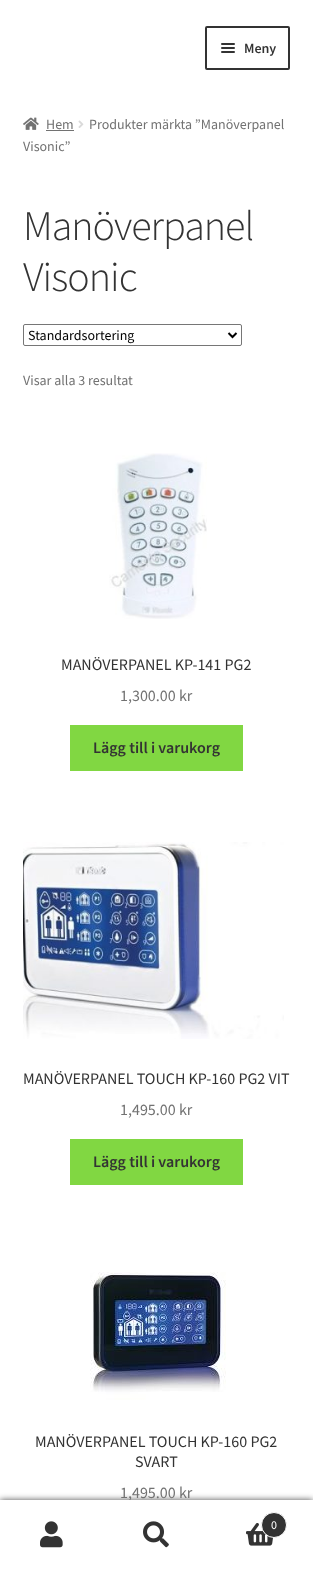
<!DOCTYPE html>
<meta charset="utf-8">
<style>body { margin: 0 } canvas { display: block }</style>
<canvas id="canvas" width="313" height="1569"></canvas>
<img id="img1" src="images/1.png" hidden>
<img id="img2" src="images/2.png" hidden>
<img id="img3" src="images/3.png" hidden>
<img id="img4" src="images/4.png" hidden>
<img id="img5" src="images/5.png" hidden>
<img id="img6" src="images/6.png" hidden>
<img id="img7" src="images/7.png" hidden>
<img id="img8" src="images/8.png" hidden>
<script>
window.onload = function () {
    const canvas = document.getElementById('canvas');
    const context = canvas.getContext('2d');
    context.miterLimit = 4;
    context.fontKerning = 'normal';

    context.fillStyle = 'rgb(255, 255, 255)';
    context.fillRect(0, 0, 313, 1569);
    context.beginPath();
    context.roundRect(206, 27, 83, 42, 1);
    context.strokeStyle = 'rgb(51, 51, 51)';
    context.lineWidth = 2;
    context.stroke();
    context.fillStyle = 'rgb(51, 51, 51)';
    context.beginPath();
    context.roundRect(221, 43, 14, 2, 1);
    context.fill();
    context.beginPath();
    context.roundRect(221, 47, 14, 2, 1);
    context.fill();
    context.beginPath();
    context.roundRect(221, 51, 14, 2, 1);
    context.fill();
    context.drawImage(document.getElementById('img1'), 23, 117, 16, 13);
    context.fillStyle = 'rgb(114, 114, 114)';
    context.fillRect(46, 130, 28, 1);
    context.drawImage(document.getElementById('img2'), 78, 120, 6, 8);
    context.beginPath();
    context.roundRect(23.5, 324.5, 218, 21, 1.5);
    context.strokeStyle = 'rgb(118, 118, 118)';
    context.lineWidth = 1;
    context.stroke();
    context.beginPath();
    context.moveTo(228.5, 333);
    context.lineTo(232.5, 337);
    context.lineTo(236.5, 333);
    context.strokeStyle = 'rgb(0, 0, 0)';
    context.lineWidth = 2;
    context.stroke();
    context.drawImage(document.getElementById('img3'), 109, 453, 98, 166);
    context.fillStyle = 'rgb(129, 215, 66)';
    context.fillRect(70, 725, 173, 46);
    context.drawImage(document.getElementById('img4'), 23, 842, 261, 197);
    context.fillRect(70, 1139, 173, 46);
    context.drawImage(document.getElementById('img5'), 90, 1272, 136, 128);
    context.fillStyle = 'rgba(0, 0, 0, 0.7)';
    context.filter = 'blur(3px)';
    context.beginPath();
    context.rect(0, 1500, 313, 69);
    context.fill();
    context.filter = 'none';
    context.fillStyle = 'rgb(255, 255, 255)';
    context.fillRect(0, 1501, 313, 68);
    context.drawImage(document.getElementById('img6'), 40, 1521, 23, 27);
    context.drawImage(document.getElementById('img7'), 143, 1521, 26, 27);
    context.drawImage(document.getElementById('img8'), 246, 1523, 28, 23);
    context.fillStyle = 'rgb(51, 51, 51)';
    context.beginPath();
    context.arc(274, 1525, 12.5, 0, 2 * Math.PI);
    context.fill();
    context.strokeStyle = 'rgb(255, 255, 255)';
    context.lineWidth = 1;
    context.stroke();
    context.font = '600 14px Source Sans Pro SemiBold';
    context.fillText('Meny', 244, 53);
    context.font = '14px Source Sans Pro';
    context.fillStyle = 'rgb(114, 114, 114)';
    context.fillText('Hem', 46, 129);
    context.fillText('Produkter märkta ”Manöverpanel', 89, 129);
    context.fillText('Visonic”', 23, 151);
    context.letterSpacing = '-1px';
    context.font = '300 42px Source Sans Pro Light';
    context.fillStyle = 'rgb(51, 51, 51)';
    context.fillText('Manöverpanel', 23, 240);
    context.fillText('Visonic', 23, 291);
    context.letterSpacing = '0px';
    context.font = '14px Source Sans Pro';
    context.fillStyle = 'rgb(0, 0, 0)';
    context.fillText('Standardsortering', 28, 340);
    context.fillStyle = 'rgb(114, 114, 114)';
    context.fillText('Visar alla 3 resultat', 23, 385);
    context.font = '16px Source Sans Pro';
    context.fillStyle = 'rgb(51, 51, 51)';
    context.fillText('MANÖVERPANEL KP-141 PG2', 61, 670);
    context.fillStyle = 'rgb(114, 114, 114)';
    context.fillText('1,300.00 kr', 120, 701);
    context.font = '600 16px Source Sans Pro SemiBold';
    context.fillStyle = 'rgb(51, 51, 51)';
    context.fillText('Lägg till i varukorg', 93, 753);
    context.font = '16px Source Sans Pro';
    context.fillText('MANÖVERPANEL TOUCH KP-160 PG2 VIT', 23, 1084);
    context.fillStyle = 'rgb(114, 114, 114)';
    context.fillText('1,495.00 kr', 120, 1115);
    context.font = '600 16px Source Sans Pro SemiBold';
    context.fillStyle = 'rgb(51, 51, 51)';
    context.fillText('Lägg till i varukorg', 93, 1167);
    context.font = '16px Source Sans Pro';
    context.fillText('MANÖVERPANEL TOUCH KP-160 PG2', 35, 1447);
    context.fillText('SVART', 135, 1467);
    context.fillStyle = 'rgb(114, 114, 114)';
    context.fillText('1,495.00 kr', 120, 1498);
    context.fillStyle = 'rgb(255, 255, 255)';
    context.fillRect(0, 1500, 313, 1);
    context.font = '12px Source Sans Pro';
    context.fillText('0', 271, 1529);
};
</script>
